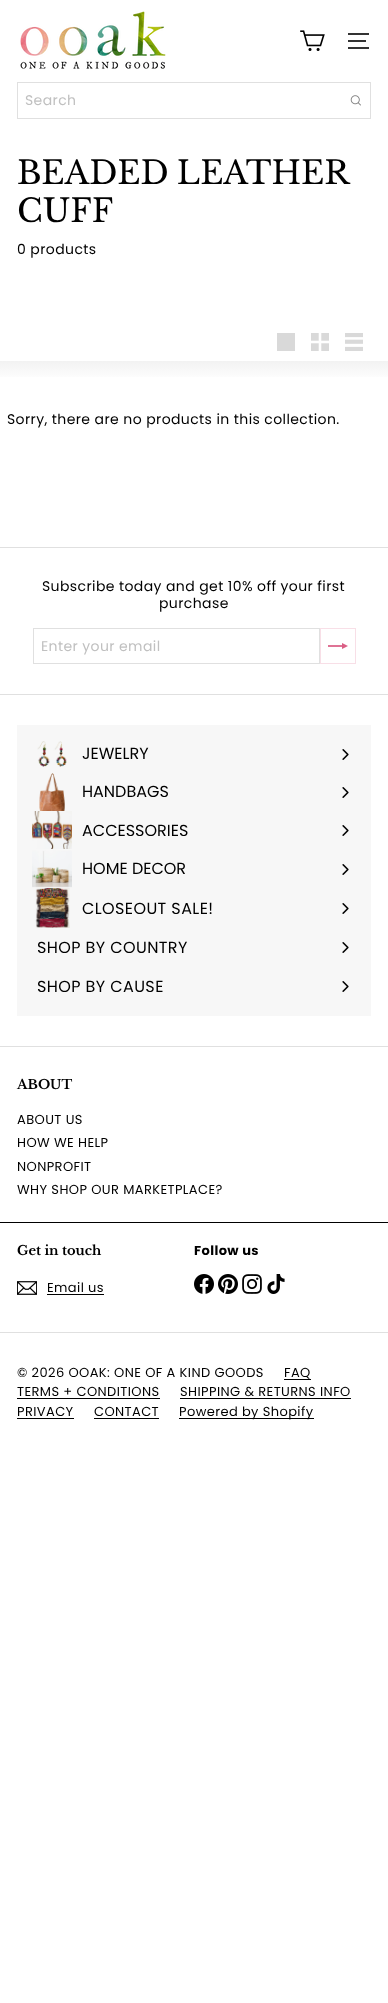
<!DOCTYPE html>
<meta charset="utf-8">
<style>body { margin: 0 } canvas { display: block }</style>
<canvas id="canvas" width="388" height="2003"></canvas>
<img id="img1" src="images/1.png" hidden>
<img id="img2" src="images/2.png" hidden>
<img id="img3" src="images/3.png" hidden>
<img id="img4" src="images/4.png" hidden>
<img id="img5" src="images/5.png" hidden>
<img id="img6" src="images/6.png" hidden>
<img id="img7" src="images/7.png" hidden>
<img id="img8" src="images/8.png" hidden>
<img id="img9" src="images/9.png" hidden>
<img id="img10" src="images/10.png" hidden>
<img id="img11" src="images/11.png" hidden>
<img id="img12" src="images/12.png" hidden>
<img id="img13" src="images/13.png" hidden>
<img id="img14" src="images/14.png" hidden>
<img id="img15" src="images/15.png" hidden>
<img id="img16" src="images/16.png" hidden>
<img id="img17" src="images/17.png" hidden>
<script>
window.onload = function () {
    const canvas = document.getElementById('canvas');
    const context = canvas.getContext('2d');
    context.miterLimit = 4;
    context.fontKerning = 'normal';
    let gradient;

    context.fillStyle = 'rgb(255, 255, 255)';
    context.fillRect(0, 0, 388, 2003);
    context.fillStyle = 'rgb(247, 247, 247)';
    context.fillRect(17, 725, 354, 291);
    context.drawImage(document.getElementById('img1'), 20, 11, 146, 58);
    context.drawImage(document.getElementById('img2'), 300, 30, 25, 21);
    context.fillStyle = 'rgb(51, 51, 51)';
    context.fillRect(348, 33, 21, 2);
    context.fillRect(348, 40, 18, 2);
    context.fillRect(348, 47, 21, 2);
    context.strokeStyle = 'rgb(224, 224, 224)';
    context.strokeRect(17.5, 82.5, 353, 36);
    context.drawImage(document.getElementById('img3'), 350, 95, 11, 11);
    context.fillStyle = 'rgb(217, 217, 217)';
    context.fillRect(277, 333, 18, 18);
    context.drawImage(document.getElementById('img4'), 311, 333, 18, 18);
    context.drawImage(document.getElementById('img5'), 345, 333, 18, 18);
    gradient = context.createLinearGradient(194, 361, 194, 381);
    gradient.addColorStop(0, 'rgb(242, 242, 242)');
    gradient.addColorStop(1, 'rgb(255, 255, 255)');
    context.fillStyle = gradient;
    context.fillRect(0, 361, 388, 16);
    context.fillStyle = 'rgb(224, 224, 224)';
    context.fillRect(0, 547, 388, 1);
    context.strokeRect(33.5, 628.5, 286, 35);
    context.strokeStyle = 'rgb(248, 223, 231)';
    context.strokeRect(320.5, 628.5, 35, 35);
    context.drawImage(document.getElementById('img6'), 328, 643, 20, 6);
    context.fillRect(0, 694, 388, 1);
    context.drawImage(document.getElementById('img7'), 37, 741, 30, 26);
    context.drawImage(document.getElementById('img8'), 342, 749, 7, 11);
    context.drawImage(document.getElementById('img9'), 39, 773, 26, 38);
    context.drawImage(document.getElementById('img8'), 342, 787, 7, 11);
    context.drawImage(document.getElementById('img10'), 32, 811, 40, 38);
    context.drawImage(document.getElementById('img8'), 342, 825, 7, 11);
    context.drawImage(document.getElementById('img11'), 32, 849, 40, 39);
    context.drawImage(document.getElementById('img8'), 342, 864, 7, 11);
    context.drawImage(document.getElementById('img12'), 35, 888, 35, 40);
    context.drawImage(document.getElementById('img8'), 342, 903, 7, 11);
    context.drawImage(document.getElementById('img8'), 342, 942, 7, 11);
    context.drawImage(document.getElementById('img8'), 342, 981, 7, 11);
    context.fillRect(0, 1046, 388, 1);
    context.fillStyle = 'rgb(0, 0, 0)';
    context.fillRect(0, 1222, 388, 1);
    context.drawImage(document.getElementById('img13'), 17, 1281, 20, 14);
    context.fillRect(47, 1294, 57, 1);
    context.drawImage(document.getElementById('img14'), 194, 1274, 20, 20);
    context.drawImage(document.getElementById('img15'), 218, 1274, 20, 20);
    context.drawImage(document.getElementById('img16'), 242, 1274, 20, 20);
    context.drawImage(document.getElementById('img17'), 267, 1274, 18, 20);
    context.fillStyle = 'rgb(224, 224, 224)';
    context.fillRect(0, 1332, 388, 1);
    context.fillStyle = 'rgb(0, 0, 0)';
    context.fillRect(284, 1379, 27, 1);
    context.fillRect(17, 1398, 143, 1);
    context.fillRect(180, 1398, 171, 1);
    context.fillRect(17, 1418, 57, 1);
    context.fillRect(94, 1418, 65, 1);
    context.fillRect(179, 1418, 135, 1);
    context.letterSpacing = '0.4px';
    context.font = '14px Poppins';
    context.fillStyle = 'rgb(192, 192, 192)';
    context.fillText('Search', 25, 105);
    context.letterSpacing = '0px';
    context.wordSpacing = '-1px';
    context.font = '32px Libre Baskerville';
    context.fillStyle = 'rgb(0, 0, 0)';
    context.fillText('BEADED LEATHER', 17, 184);
    context.wordSpacing = '0px';
    context.fillText('CUFF', 17, 222);
    context.letterSpacing = '0.4px';
    context.font = '14px Poppins';
    context.fillText('0 products', 17, 254);
    context.fillText('Sorry, there are no products in this collection.', 7, 424);
    context.fillText('Subscribe today and get 10% off your first', 42, 591);
    context.fillText('purchase', 159, 608);
    context.fillStyle = 'rgb(192, 192, 192)';
    context.fillText('Enter your email', 41, 651);
    context.letterSpacing = '0px';
    context.font = '16px Poppins';
    context.fillStyle = 'rgb(0, 0, 0)';
    context.fillText('JEWELRY', 82, 759);
    context.fillText('HANDBAGS', 82, 797);
    context.fillText('ACCESSORIES', 82, 836);
    context.fillText('HOME DECOR', 82, 874);
    context.letterSpacing = '0.4px';
    context.fillText('CLOSEOUT SALE!', 82, 914);
    context.fillText('SHOP BY COUNTRY', 37, 953);
    context.fillText('SHOP BY CAUSE', 37, 992);
    context.letterSpacing = '0px';
    context.font = 'bold 13px Libre Baskerville';
    context.fillText('ABOUT', 17, 1089);
    context.letterSpacing = '0.4px';
    context.font = '13px Poppins';
    context.fillText('ABOUT US', 17, 1124);
    context.fillText('HOW WE HELP', 17, 1147);
    context.fillText('NONPROFIT', 17, 1171);
    context.fillText('WHY SHOP OUR MARKETPLACE?', 17, 1194);
    context.letterSpacing = '0px';
    context.font = 'bold 13px Libre Baskerville';
    context.fillText('Get in touch', 17, 1255);
    context.letterSpacing = '0.4px';
    context.font = '13px Poppins';
    context.fillText('Email us', 47, 1292);
    context.font = 'bold 13px Poppins';
    context.fillText('Follow us', 194, 1255);
    context.font = '13px Poppins';
    context.fillText('© 2026 OOAK: ONE OF A KIND GOODS', 17, 1377);
    context.fillText('FAQ', 284, 1377);
    context.fillText('TERMS + CONDITIONS', 17, 1396);
    context.fillText('SHIPPING & RETURNS INFO', 180, 1396);
    context.fillText('PRIVACY', 17, 1416);
    context.fillText('CONTACT', 94, 1416);
    context.fillText('Powered by Shopify', 179, 1416);
};
</script>
